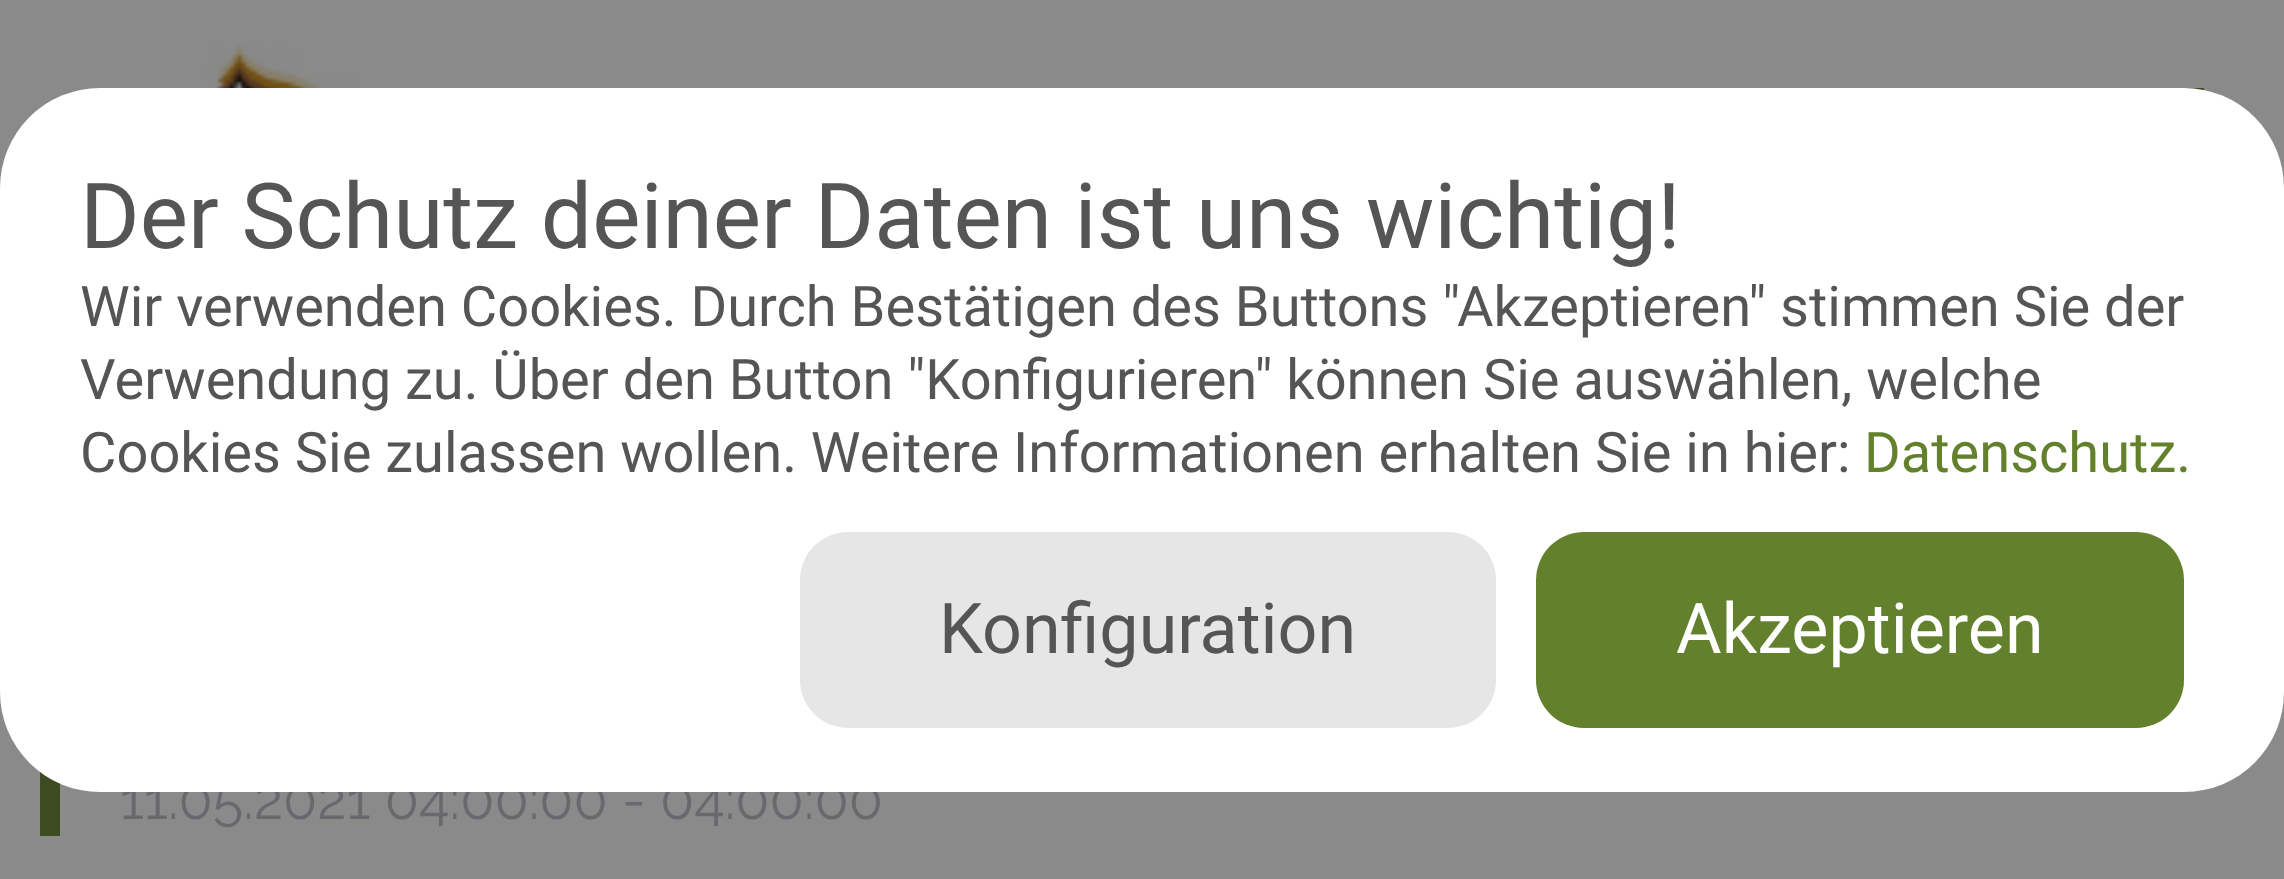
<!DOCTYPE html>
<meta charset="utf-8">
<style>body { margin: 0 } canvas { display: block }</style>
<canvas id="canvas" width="2284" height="879"></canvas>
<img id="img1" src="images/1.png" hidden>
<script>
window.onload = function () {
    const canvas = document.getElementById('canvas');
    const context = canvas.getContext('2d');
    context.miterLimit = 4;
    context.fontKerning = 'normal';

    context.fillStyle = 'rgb(138, 138, 138)';
    context.fillRect(0, 0, 2284, 879);
    context.drawImage(document.getElementById('img1'), 80, 44, 304, 46);
    context.fillStyle = 'rgb(60, 75, 32)';
    context.fillRect(2185, 88, 19, 2);
    context.fillRect(40, 772, 20, 64);
    context.font = '56px Raleway';
    context.fillStyle = 'rgb(104, 105, 109)';
    context.fillText('11.05.2021 04:00:00 - 04:00:00', 120, 819);
    context.fillStyle = 'rgb(255, 255, 255)';
    context.beginPath();
    context.roundRect(0, 88, 2284, 704, 100);
    context.fill();
    context.font = '56px Roboto';
    context.fillStyle = 'rgb(99, 129, 44)';
    context.fillText('Datenschutz.', 1864, 472);
    context.fillStyle = 'rgb(85, 85, 85)';
    context.fillText('Cookies Sie zulassen wollen. Weitere Informationen erhalten Sie in hier:', 80, 472);
    context.fillText('Verwendung zu. Über den Button "Konfigurieren" können Sie auswählen, welche', 80, 399);
    context.fillText('Wir verwenden Cookies. Durch Bestätigen des Buttons "Akzeptieren" stimmen Sie der', 80, 326);
    context.font = '91px Roboto';
    context.fillText('Der Schutz deiner Daten ist uns wichtig!', 80, 248);
    context.fillStyle = 'rgb(230, 230, 230)';
    context.beginPath();
    context.roundRect(800, 532, 696, 196, 48);
    context.fill();
    context.font = '70px Roboto';
    context.fillStyle = 'rgb(85, 85, 85)';
    context.fillText('Konfiguration', 939, 653);
    context.fillStyle = 'rgb(99, 129, 44)';
    context.beginPath();
    context.roundRect(1536, 532, 648, 196, 48);
    context.fill();
    context.fillStyle = 'rgb(255, 255, 255)';
    context.fillText('Akzeptieren', 1676, 653);
};
</script>
